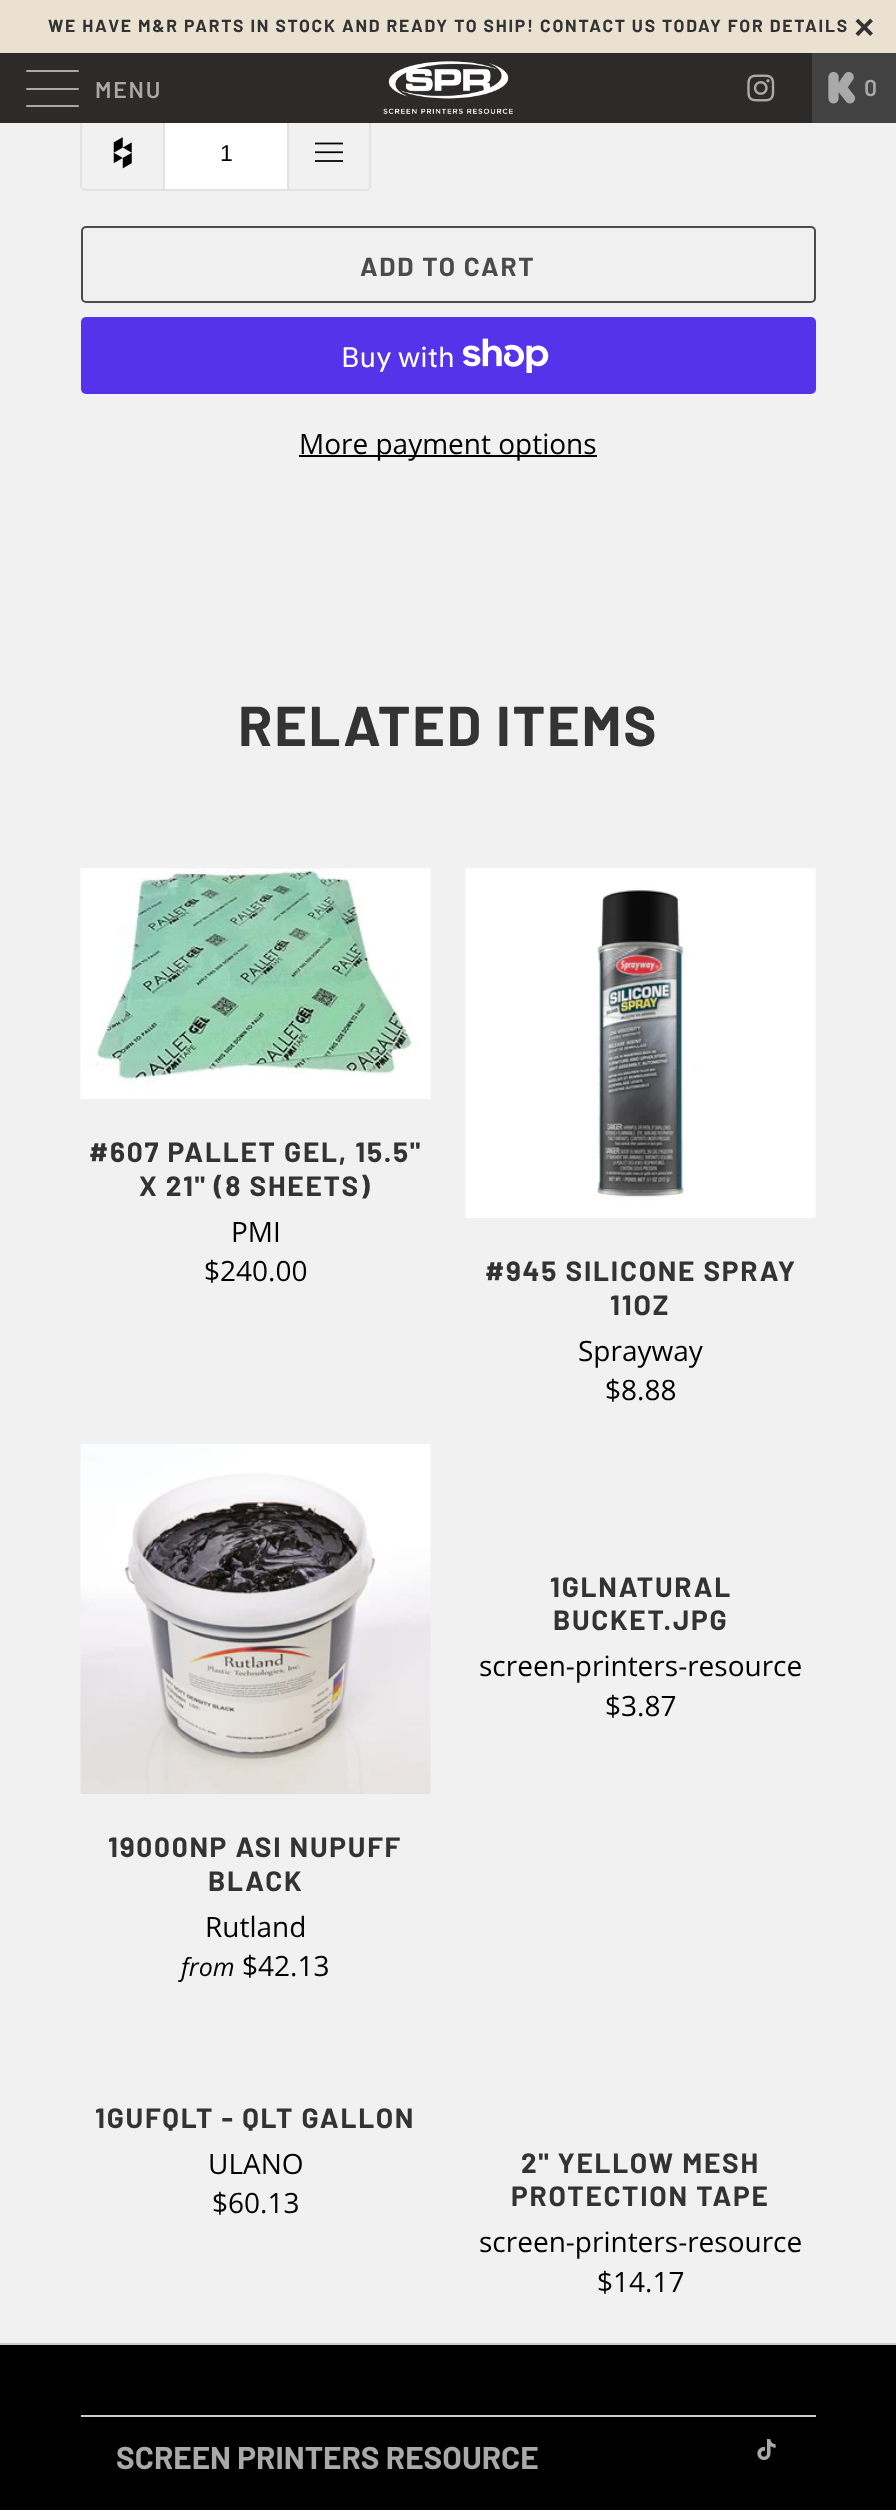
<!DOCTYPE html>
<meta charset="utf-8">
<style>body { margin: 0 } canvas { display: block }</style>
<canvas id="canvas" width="896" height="2510"></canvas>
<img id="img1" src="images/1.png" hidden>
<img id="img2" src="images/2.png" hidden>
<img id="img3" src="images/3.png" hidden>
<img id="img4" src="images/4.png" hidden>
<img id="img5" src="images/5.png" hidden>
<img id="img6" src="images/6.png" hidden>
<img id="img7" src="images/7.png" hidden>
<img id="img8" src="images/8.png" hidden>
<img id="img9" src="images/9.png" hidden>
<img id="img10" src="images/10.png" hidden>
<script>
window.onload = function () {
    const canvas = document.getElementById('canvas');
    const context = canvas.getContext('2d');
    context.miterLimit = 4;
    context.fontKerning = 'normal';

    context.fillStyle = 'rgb(241, 241, 241)';
    context.fillRect(0, 0, 896, 2510);
    context.fillStyle = 'rgb(234, 225, 209)';
    context.fillRect(0, 0, 896, 53);
    context.fillStyle = 'rgb(226, 226, 226)';
    context.beginPath();
    context.moveTo(86, 114);
    context.lineTo(163, 114);
    context.lineTo(163, 191);
    context.lineTo(86, 191);
    context.bezierCurveTo(83, 191, 80, 188, 80, 186);
    context.lineTo(80, 119);
    context.bezierCurveTo(80, 116, 83, 114, 86, 114);
    context.closePath();
    context.moveTo(86, 116);
    context.lineTo(163, 116);
    context.lineTo(163, 189);
    context.lineTo(86, 189);
    context.bezierCurveTo(84, 189, 82, 187, 82, 186);
    context.lineTo(82, 119);
    context.bezierCurveTo(82, 117, 84, 116, 86, 116);
    context.closePath();
    context.fill('evenodd');
    context.fillStyle = 'rgb(255, 255, 255)';
    context.fillRect(165, 123, 122, 66);
    context.strokeStyle = 'rgb(226, 226, 226)';
    context.lineWidth = 2;
    context.strokeRect(164, 115, 124, 75);
    context.fillStyle = 'rgb(226, 226, 226)';
    context.beginPath();
    context.moveTo(289, 114);
    context.lineTo(366, 114);
    context.bezierCurveTo(369, 114, 371, 116, 371, 119);
    context.lineTo(371, 186);
    context.bezierCurveTo(371, 188, 369, 191, 366, 191);
    context.lineTo(289, 191);
    context.closePath();
    context.moveTo(289, 116);
    context.lineTo(366, 116);
    context.bezierCurveTo(368, 116, 369, 117, 369, 119);
    context.lineTo(369, 186);
    context.bezierCurveTo(369, 187, 368, 189, 366, 189);
    context.lineTo(289, 189);
    context.closePath();
    context.fill('evenodd');
    context.fillStyle = 'rgb(45, 42, 42)';
    context.fillRect(0, 53, 812, 70);
    context.fillStyle = 'rgb(169, 169, 169)';
    context.beginPath();
    context.roundRect(26, 70, 53, 2, 1);
    context.fill();
    context.beginPath();
    context.roundRect(26, 88, 53, 2, 1);
    context.fill();
    context.beginPath();
    context.roundRect(26, 105, 53, 2, 1);
    context.fill();
    context.drawImage(document.getElementById('img1'), 383, 61, 130, 53);
    context.drawImage(document.getElementById('img2'), 747, 74, 28, 28);
    context.fillStyle = 'rgb(66, 66, 66)';
    context.fillRect(812, 53, 84, 70);
    context.drawImage(document.getElementById('img3'), 828, 72, 28, 32);
    context.drawImage(document.getElementById('img4'), 113, 137, 19, 32);
    context.drawImage(document.getElementById('img5'), 315, 142, 28, 20);
    context.beginPath();
    context.roundRect(82, 227, 733, 75, 4);
    context.strokeStyle = 'rgb(75, 75, 75)';
    context.stroke();
    context.fillStyle = 'rgb(84, 51, 235)';
    context.beginPath();
    context.roundRect(81, 317, 735, 77, 5);
    context.fill();
    context.drawImage(document.getElementById('img6'), 463, 338, 86, 35);
    context.fillStyle = 'rgb(0, 0, 0)';
    context.fillRect(299, 455, 298, 2);
    context.drawImage(document.getElementById('img7'), 80, 868, 351, 231);
    context.drawImage(document.getElementById('img8'), 465, 868, 351, 350);
    context.drawImage(document.getElementById('img9'), 80, 1444, 351, 350);
    context.fillRect(0, 2345, 896, 165);
    context.fillStyle = 'rgb(204, 204, 204)';
    context.fillRect(0, 2343, 896, 2);
    context.fillRect(81, 2415, 735, 2);
    context.drawImage(document.getElementById('img10'), 757, 2439, 19, 21);
    context.letterSpacing = '1.75px';
    context.font = 'bold 17.5px Barlow';
    context.fillStyle = 'rgb(51, 51, 51)';
    context.fillText('WE HAVE M&R PARTS IN STOCK AND READY TO SHIP! CONTACT US TODAY FOR DETAILS', 48, 32);
    context.font = 'bold 35px Liberation Sans';
    context.fillText('×', 854, 39);
    context.font = '600 23px Barlow';
    context.fillStyle = 'rgb(169, 169, 169)';
    context.fillText('MENU', 95, 98);
    context.fillText('0', 864, 96);
    context.letterSpacing = '0px';
    context.font = '23px Liberation Sans';
    context.fillStyle = 'rgb(0, 0, 0)';
    context.fillText('1', 220, 161);
    context.letterSpacing = '1.75px';
    context.font = 'bold 26.25px Barlow';
    context.fillStyle = 'rgb(75, 75, 75)';
    context.fillText('ADD TO CART', 360, 276);
    context.letterSpacing = '0px';
    context.font = '28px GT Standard';
    context.fillStyle = 'rgb(255, 255, 255)';
    context.fillText('Buy with', 341, 367);
    context.font = '28px Open Sans';
    context.fillStyle = 'rgb(0, 0, 0)';
    context.fillText('More payment options', 299, 454);
    context.letterSpacing = '1.75px';
    context.font = 'bold 56px Barlow';
    context.fillStyle = 'rgb(51, 51, 51)';
    context.fillText('RELATED ITEMS', 238, 746);
    context.font = 'bold 28px Barlow';
    context.fillText('#607 PALLET GEL, 15.5"', 89, 1162);
    context.fillText('X 21" (8 SHEETS)', 139, 1196);
    context.letterSpacing = '0px';
    context.font = '28px Open Sans';
    context.fillStyle = 'rgb(0, 0, 0)';
    context.fillText('PMI', 231, 1242);
    context.fillText('$240.00', 204, 1281);
    context.letterSpacing = '1.75px';
    context.font = 'bold 28px Barlow';
    context.fillStyle = 'rgb(51, 51, 51)';
    context.fillText('#945 SILICONE SPRAY', 485, 1281);
    context.fillText('11OZ', 610, 1315);
    context.letterSpacing = '0px';
    context.font = '28px Open Sans';
    context.fillStyle = 'rgb(0, 0, 0)';
    context.fillText('Sprayway', 578, 1361);
    context.fillText('$8.88', 605, 1400);
    context.letterSpacing = '1.75px';
    context.font = 'bold 28px Barlow';
    context.fillStyle = 'rgb(51, 51, 51)';
    context.fillText('1GLNATURAL', 550, 1597);
    context.fillText('BUCKET.JPG', 553, 1630);
    context.letterSpacing = '0px';
    context.font = '28px Open Sans';
    context.fillStyle = 'rgb(0, 0, 0)';
    context.fillText('screen-printers-resource', 479, 1676);
    context.fillText('$3.87', 605, 1716);
    context.letterSpacing = '1.75px';
    context.font = 'bold 28px Barlow';
    context.fillStyle = 'rgb(51, 51, 51)';
    context.fillText('19000NP ASI NUPUFF', 108, 1857);
    context.fillText('BLACK', 208, 1891);
    context.letterSpacing = '0px';
    context.font = '28px Open Sans';
    context.fillStyle = 'rgb(0, 0, 0)';
    context.fillText('Rutland', 205, 1937);
    context.font = 'italic 25px Open Sans';
    context.fillText('from', 181, 1976);
    context.font = '28px Open Sans';
    context.fillText('$42.13', 242, 1976);
    context.letterSpacing = '1.75px';
    context.font = 'bold 28px Barlow';
    context.fillStyle = 'rgb(51, 51, 51)';
    context.fillText('1GUFQLT - QLT GALLON', 95, 2128);
    context.letterSpacing = '0px';
    context.font = '28px Open Sans';
    context.fillStyle = 'rgb(0, 0, 0)';
    context.fillText('ULANO', 208, 2174);
    context.fillText('$60.13', 212, 2213);
    context.letterSpacing = '1.75px';
    context.font = 'bold 28px Barlow';
    context.fillStyle = 'rgb(51, 51, 51)';
    context.fillText('2" YELLOW MESH', 521, 2173);
    context.fillText('PROTECTION TAPE', 511, 2206);
    context.letterSpacing = '0px';
    context.font = '28px Open Sans';
    context.fillStyle = 'rgb(0, 0, 0)';
    context.fillText('screen-printers-resource', 479, 2252);
    context.fillText('$14.17', 597, 2292);
    context.font = 'bold 31.5px Barlow';
    context.fillStyle = 'rgb(169, 169, 169)';
    context.fillText('SCREEN PRINTERS RESOURCE', 116, 2469);
};
</script>
